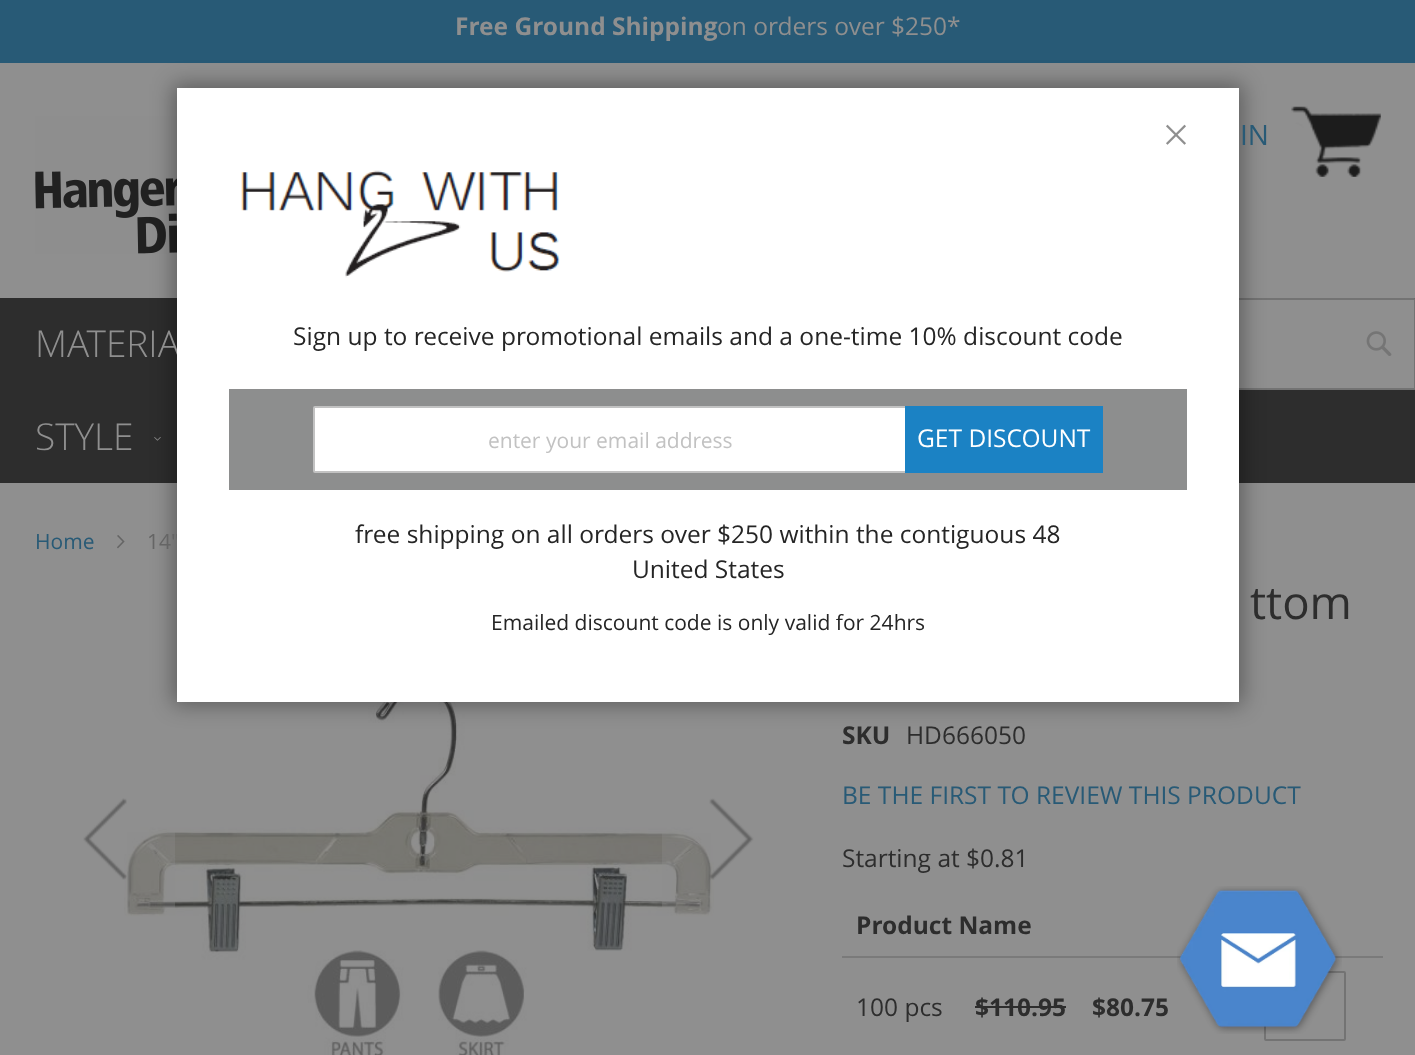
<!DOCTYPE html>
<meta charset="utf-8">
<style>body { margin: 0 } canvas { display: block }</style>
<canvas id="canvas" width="1415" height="1055"></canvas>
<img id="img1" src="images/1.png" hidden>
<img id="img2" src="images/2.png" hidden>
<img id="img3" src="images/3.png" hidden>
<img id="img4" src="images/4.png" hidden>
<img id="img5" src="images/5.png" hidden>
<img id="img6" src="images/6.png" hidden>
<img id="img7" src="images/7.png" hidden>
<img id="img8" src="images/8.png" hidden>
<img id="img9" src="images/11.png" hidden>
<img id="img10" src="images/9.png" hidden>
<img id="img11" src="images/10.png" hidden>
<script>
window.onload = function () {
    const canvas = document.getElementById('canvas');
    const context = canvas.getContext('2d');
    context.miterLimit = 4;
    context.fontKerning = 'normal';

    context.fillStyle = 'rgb(143, 143, 143)';
    context.fillRect(0, 0, 1415, 1055);
    context.fillStyle = 'rgb(40, 90, 118)';
    context.fillRect(0, 0, 1415, 63);
    context.drawImage(document.getElementById('img1'), 35, 116, 142, 138);
    context.drawImage(document.getElementById('img2'), 1291, 106, 90, 71);
    context.fillStyle = 'rgb(45, 45, 45)';
    context.fillRect(0, 298, 1415, 185);
    context.drawImage(document.getElementById('img3'), 154, 437, 7, 4);
    context.fillStyle = 'rgb(143, 143, 143)';
    context.fillRect(1239, 300, 175, 88);
    context.beginPath();
    context.roundRect(804, 299, 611, 90, 1);
    context.strokeStyle = 'rgb(115, 115, 115)';
    context.lineWidth = 2;
    context.stroke();
    context.drawImage(document.getElementById('img4'), 1366, 331, 26, 25);
    context.drawImage(document.getElementById('img5'), 117, 535, 8, 14);
    context.drawImage(document.getElementById('img6'), 124, 679, 590, 376);
    context.fillStyle = 'rgba(143, 143, 143, 0.3)';
    context.fillRect(127, 832, 48, 83);
    context.drawImage(document.getElementById('img7'), 83, 798, 44, 82);
    context.fillRect(662, 833, 49, 81);
    context.drawImage(document.getElementById('img8'), 709, 798, 45, 82);
    context.fillStyle = 'rgb(122, 122, 122)';
    context.fillRect(842, 956, 340, 2);
    context.fillRect(1334, 956, 49, 2);
    context.fillStyle = 'rgb(45, 45, 45)';
    context.fillRect(975, 1006, 91, 2);
    context.beginPath();
    context.roundRect(1265, 972, 80, 68, 1);
    context.stroke();
    context.fillStyle = 'rgba(0, 0, 0, 0.35)';
    context.filter = 'blur(10.5px)';
    context.beginPath();
    context.rect(173, 84, 1070, 621);
    context.fill();
    context.filter = 'none';
    context.drawImage(document.getElementById('img9'), 1177, 886, 165, 148);
    context.font = 'bold 24.5px Open Sans';
    context.fillStyle = 'rgb(143, 143, 143)';
    context.fillText('Free Ground Shipping', 455, 35);
    context.font = '24.5px Open Sans';
    context.fillText('on orders over $250*', 717, 35);
    context.font = '28px Open Sans';
    context.fillStyle = 'rgb(40, 90, 118)';
    context.fillText('IN', 1240, 145);
    context.font = '300 37px Open Sans';
    context.fillStyle = 'rgb(143, 143, 143)';
    context.fillText('MATERIA', 35, 357);
    context.fillText('STYLE', 35, 450);
    context.font = '21px Open Sans';
    context.fillStyle = 'rgb(40, 90, 118)';
    context.fillText('Home', 35, 549);
    context.fillStyle = 'rgb(101, 101, 101)';
    context.fillText('14"', 147, 549);
    context.font = '45.5px Open Sans';
    context.fillStyle = 'rgb(45, 45, 45)';
    context.fillText('ttom', 1250, 619);
    context.font = 'bold 24.5px Open Sans';
    context.fillText('SKU', 842, 744);
    context.font = '24.5px Open Sans';
    context.fillText('HD666050', 906, 744);
    context.fillStyle = 'rgb(40, 90, 118)';
    context.fillText('BE THE FIRST TO REVIEW THIS PRODUCT', 842, 804);
    context.fillStyle = 'rgb(45, 45, 45)';
    context.fillText('Starting at $0.81', 842, 867);
    context.font = 'bold 24.5px Open Sans';
    context.fillText('Product Name', 856, 934);
    context.font = '24.5px Open Sans';
    context.fillText('100 pcs', 856, 1016);
    context.font = 'bold 24.5px Open Sans';
    context.fillText('$110.95', 975, 1016);
    context.fillText('$80.75', 1092, 1016);
    context.fillStyle = 'rgb(255, 255, 255)';
    context.fillRect(177, 88, 1062, 614);
    context.drawImage(document.getElementById('img10'), 1166, 124, 20, 21);
    context.drawImage(document.getElementById('img11'), 241, 170, 319, 108);
    context.font = '24.5px Open Sans';
    context.fillStyle = 'rgb(37, 37, 37)';
    context.fillText('Sign up to receive promotional emails and a one-time 10% discount code', 293, 345);
    context.fillStyle = 'rgb(141, 142, 142)';
    context.fillRect(229, 389, 958, 101);
    context.fillStyle = 'rgb(255, 255, 255)';
    context.fillRect(315, 408, 590, 63);
    context.beginPath();
    context.roundRect(314, 407, 593, 65, 1);
    context.strokeStyle = 'rgb(194, 194, 194)';
    context.stroke();
    context.font = '21px Open Sans';
    context.fillStyle = 'rgb(194, 194, 194)';
    context.fillText('enter your email address', 488, 448);
    context.fillStyle = 'rgb(27, 130, 196)';
    context.fillRect(905, 406, 198, 67);
    context.font = '24.5px Open Sans';
    context.fillStyle = 'rgb(255, 255, 255)';
    context.fillText('GET DISCOUNT', 917, 447);
    context.fillStyle = 'rgb(37, 37, 37)';
    context.fillText('free shipping on all orders over $250 within the contiguous 48', 355, 543);
    context.fillText('United States', 632, 578);
    context.font = '21px Open Sans';
    context.fillText('Emailed discount code is only valid for 24hrs', 491, 630);
};
</script>
